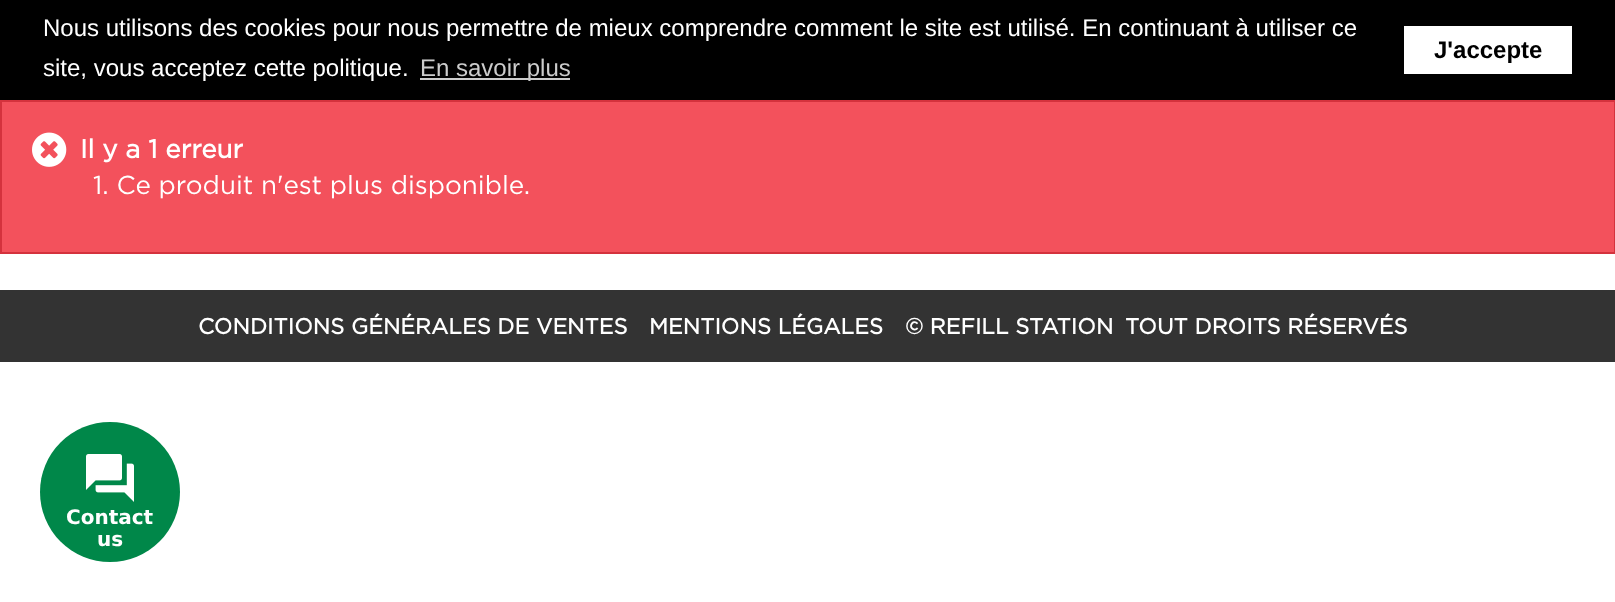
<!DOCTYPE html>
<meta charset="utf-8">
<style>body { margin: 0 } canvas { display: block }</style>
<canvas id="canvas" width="1615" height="602"></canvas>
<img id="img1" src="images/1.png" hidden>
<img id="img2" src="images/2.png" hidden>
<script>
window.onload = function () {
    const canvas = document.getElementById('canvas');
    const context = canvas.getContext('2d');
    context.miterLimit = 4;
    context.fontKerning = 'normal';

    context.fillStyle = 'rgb(255, 255, 255)';
    context.fillRect(0, 0, 1615, 602);
    context.fillStyle = 'rgb(0, 0, 0)';
    context.fillRect(0, 0, 1615, 100);
    context.fillStyle = 'rgb(204, 204, 204)';
    context.fillRect(420, 78, 150, 2);
    context.fillStyle = 'rgb(255, 255, 255)';
    context.fillRect(1404, 26, 168, 48);
    context.fillStyle = 'rgb(243, 81, 92)';
    context.beginPath();
    context.rect(1, 101, 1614, 152);
    context.fill();
    context.strokeStyle = 'rgb(212, 50, 61)';
    context.lineWidth = 2;
    context.stroke();
    context.drawImage(document.getElementById('img1'), 32, 132, 35, 35);
    context.fillStyle = 'rgb(51, 51, 51)';
    context.fillRect(0, 290, 1615, 72);
    context.fillStyle = 'rgb(0, 135, 73)';
    context.beginPath();
    context.arc(110, 492, 70, 0, 2 * Math.PI);
    context.fill();
    context.drawImage(document.getElementById('img2'), 86, 454, 48, 48);
    context.font = '24px Liberation Sans';
    context.fillStyle = 'rgb(255, 255, 255)';
    context.fillText('Nous utilisons des cookies pour nous permettre de mieux comprendre comment le site est utilisé. En continuant à utiliser ce', 43, 36);
    context.fillText('site, vous acceptez cette politique.', 43, 76);
    context.fillStyle = 'rgb(204, 204, 204)';
    context.fillText('En savoir plus', 420, 76);
    context.font = 'bold 24px Liberation Sans';
    context.fillStyle = 'rgb(0, 0, 0)';
    context.fillText('J\'accepte', 1434, 58);
    context.font = 'bold 26px Gotham';
    context.fillStyle = 'rgb(255, 255, 255)';
    context.fillText('Il y a 1 erreur', 80, 158);
    context.font = '26px Gotham';
    context.fillText('1. Ce produit n\'est plus disponible.', 93, 194);
    context.font = 'bold 22px Gotham';
    context.fillText('CONDITIONS GÉNÉRALES DE VENTES', 198, 334);
    context.fillText('MENTIONS LÉGALES', 649, 334);
    context.fillText('© REFILL STATION', 905, 334);
    context.fillText('TOUT DROITS RÉSERVÉS', 1125, 334);
    context.font = 'bold 20px DejaVu Sans';
    context.fillText('Contact', 66, 524);
    context.fillText('us', 97, 546);
};
</script>
